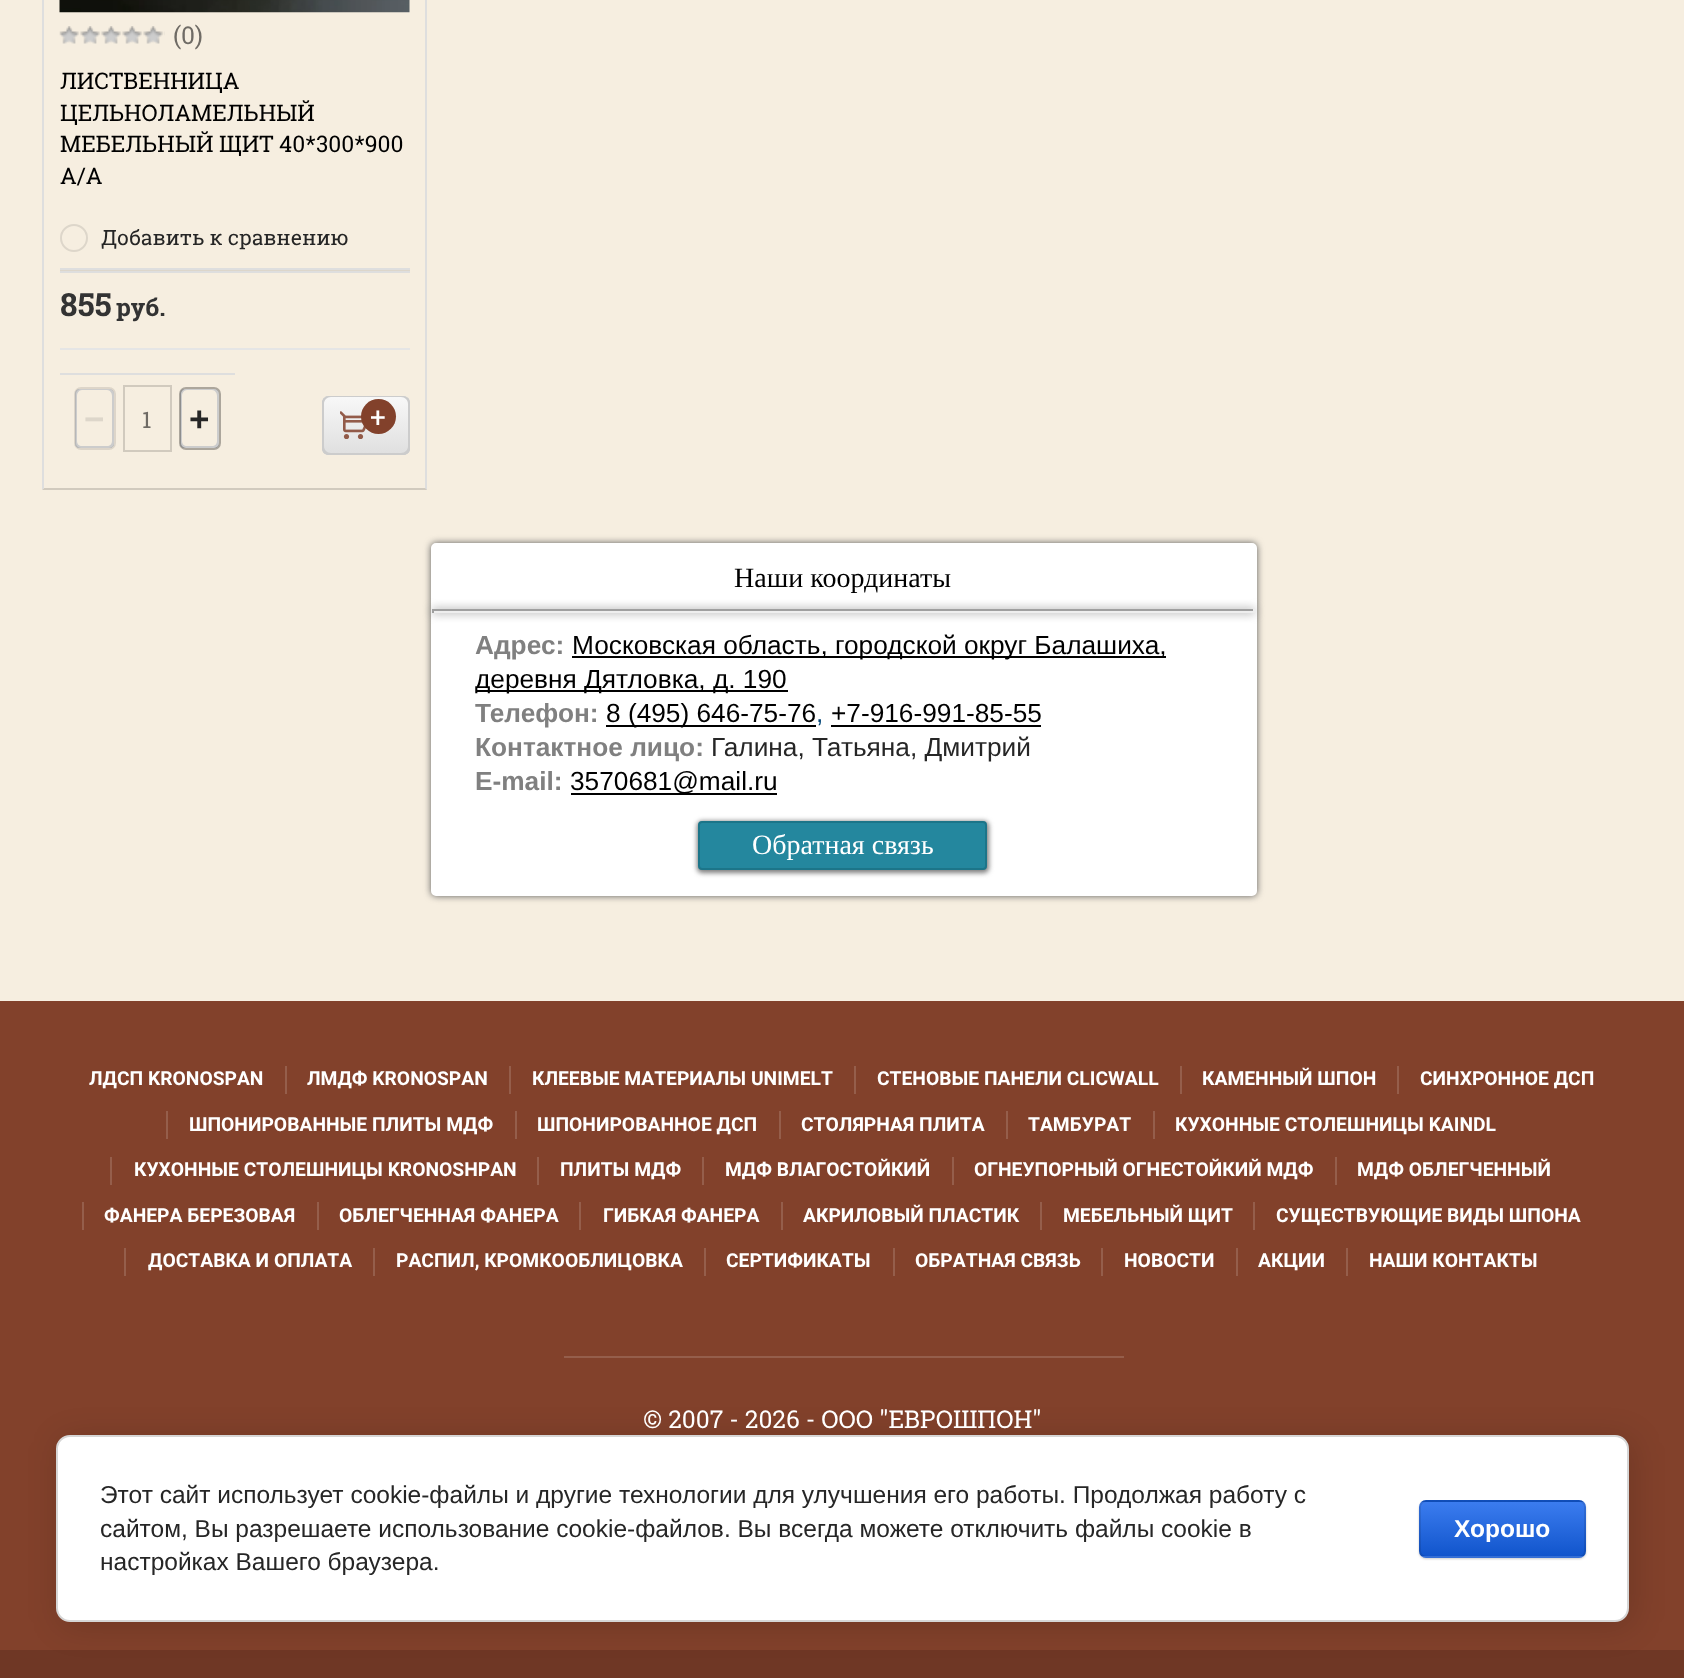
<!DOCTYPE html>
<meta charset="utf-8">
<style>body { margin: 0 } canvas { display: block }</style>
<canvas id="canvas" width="1684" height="1678"></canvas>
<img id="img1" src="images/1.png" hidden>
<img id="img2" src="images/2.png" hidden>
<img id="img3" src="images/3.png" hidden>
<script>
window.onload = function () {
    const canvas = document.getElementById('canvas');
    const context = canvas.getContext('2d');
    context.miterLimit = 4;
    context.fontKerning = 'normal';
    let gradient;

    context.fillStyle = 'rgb(246, 238, 224)';
    context.fillRect(0, 0, 1684, 1678);
    context.fillStyle = 'rgb(222, 222, 222)';
    context.beginPath();
    context.moveTo(427, -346);
    context.lineTo(427, 490);
    context.lineTo(425, 488);
    context.lineTo(425, -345);
    context.closePath();
    context.fill();
    context.fillStyle = 'rgba(0, 0, 0, 0.15)';
    context.beginPath();
    context.moveTo(427, 490);
    context.lineTo(42, 490);
    context.lineTo(44, 488);
    context.lineTo(425, 488);
    context.closePath();
    context.fill();
    context.fillStyle = 'rgb(222, 222, 222)';
    context.beginPath();
    context.moveTo(42, 490);
    context.lineTo(42, -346);
    context.lineTo(44, -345);
    context.lineTo(44, 488);
    context.closePath();
    context.fill();
    context.fillStyle = 'rgb(221, 214, 202)';
    context.fillRect(60, 270, 350, 1);
    context.drawImage(document.getElementById('img1'), 59, 0, 351, 13);
    context.drawImage(document.getElementById('img2'), 59, 26, 106, 18);
    context.fillStyle = 'rgb(222, 222, 222)';
    context.fillRect(60, 268, 350, 2);
    context.beginPath();
    context.arc(74, 238, 13, 0, 2 * Math.PI);
    context.strokeStyle = 'rgb(221, 214, 202)';
    context.lineWidth = 2;
    context.stroke();
    context.fillRect(60, 271, 350, 2);
    context.fillStyle = 'rgb(229, 229, 229)';
    context.fillRect(60, 348, 350, 2);
    context.fillStyle = 'rgb(222, 222, 222)';
    context.fillRect(60, 373, 175, 2);
    context.fillStyle = 'rgb(204, 204, 204)';
    context.beginPath();
    context.moveTo(77, 390);
    context.bezierCurveTo(76, 391, 75, 392, 75, 394);
    context.lineTo(75, 443);
    context.bezierCurveTo(75, 446, 77, 448, 80, 448);
    context.lineTo(109, 448);
    context.bezierCurveTo(111, 448, 113, 447, 114, 445);
    context.lineTo(110, 446);
    context.lineTo(82, 446);
    context.bezierCurveTo(79, 446, 77, 444, 77, 441);
    context.lineTo(77, 392);
    context.closePath();
    context.fill();
    context.beginPath();
    context.moveTo(79, 390);
    context.lineTo(107, 390);
    context.bezierCurveTo(110, 390, 112, 393, 112, 396);
    context.lineTo(112, 444);
    context.lineTo(111, 448);
    context.bezierCurveTo(113, 447, 114, 445, 114, 443);
    context.lineTo(114, 394);
    context.bezierCurveTo(114, 391, 112, 389, 109, 389);
    context.lineTo(80, 389);
    context.bezierCurveTo(78, 389, 76, 390, 76, 392);
    context.bezierCurveTo(76, 391, 78, 390, 79, 390);
    context.closePath();
    context.fill();
    context.beginPath();
    context.moveTo(75, 444);
    context.bezierCurveTo(76, 447, 78, 448, 80, 448);
    context.lineTo(109, 448);
    context.bezierCurveTo(112, 448, 114, 446, 114, 443);
    context.lineTo(114, 394);
    context.bezierCurveTo(114, 392, 113, 391, 112, 390);
    context.lineTo(112, 392);
    context.lineTo(112, 441);
    context.bezierCurveTo(112, 444, 110, 446, 107, 446);
    context.lineTo(79, 446);
    context.bezierCurveTo(77, 446, 76, 445, 75, 444);
    context.closePath();
    context.fill();
    context.beginPath();
    context.moveTo(82, 390);
    context.lineTo(110, 390);
    context.lineTo(113, 391);
    context.bezierCurveTo(112, 390, 111, 389, 109, 389);
    context.lineTo(80, 389);
    context.bezierCurveTo(77, 389, 75, 391, 75, 394);
    context.lineTo(75, 443);
    context.bezierCurveTo(75, 445, 76, 447, 78, 448);
    context.lineTo(77, 444);
    context.lineTo(77, 396);
    context.bezierCurveTo(77, 393, 79, 390, 82, 390);
    context.closePath();
    context.fill();
    context.beginPath();
    context.roundRect(75, 388, 40, 61, 6);
    context.strokeStyle = 'rgba(0, 0, 0, 0.1)';
    context.stroke();
    context.strokeStyle = 'rgb(209, 202, 190)';
    context.strokeRect(124, 386, 47, 65);
    context.beginPath();
    context.moveTo(182, 390);
    context.bezierCurveTo(181, 391, 180, 392, 180, 394);
    context.lineTo(180, 443);
    context.bezierCurveTo(180, 446, 182, 448, 185, 448);
    context.lineTo(214, 448);
    context.bezierCurveTo(216, 448, 218, 447, 219, 444);
    context.bezierCurveTo(218, 445, 217, 446, 215, 446);
    context.lineTo(187, 446);
    context.bezierCurveTo(184, 446, 182, 444, 182, 441);
    context.lineTo(182, 392);
    context.closePath();
    context.fill();
    context.beginPath();
    context.moveTo(184, 390);
    context.lineTo(212, 390);
    context.bezierCurveTo(215, 390, 217, 393, 217, 396);
    context.lineTo(217, 444);
    context.lineTo(216, 448);
    context.bezierCurveTo(218, 447, 219, 445, 219, 443);
    context.lineTo(219, 394);
    context.bezierCurveTo(219, 391, 217, 389, 214, 389);
    context.lineTo(185, 389);
    context.bezierCurveTo(183, 389, 182, 390, 181, 391);
    context.closePath();
    context.fill();
    context.beginPath();
    context.moveTo(180, 445);
    context.bezierCurveTo(181, 447, 183, 448, 185, 448);
    context.lineTo(214, 448);
    context.bezierCurveTo(217, 448, 219, 446, 219, 443);
    context.lineTo(219, 394);
    context.bezierCurveTo(219, 392, 218, 391, 217, 390);
    context.lineTo(217, 392);
    context.lineTo(217, 441);
    context.bezierCurveTo(217, 444, 215, 446, 212, 446);
    context.lineTo(184, 446);
    context.closePath();
    context.fill();
    context.beginPath();
    context.moveTo(187, 390);
    context.lineTo(215, 390);
    context.bezierCurveTo(216, 390, 218, 391, 218, 392);
    context.bezierCurveTo(218, 390, 216, 389, 214, 389);
    context.lineTo(185, 389);
    context.bezierCurveTo(182, 389, 180, 391, 180, 394);
    context.lineTo(180, 443);
    context.bezierCurveTo(180, 445, 181, 447, 183, 448);
    context.lineTo(182, 444);
    context.lineTo(182, 396);
    context.bezierCurveTo(182, 393, 184, 390, 187, 390);
    context.closePath();
    context.fill();
    context.beginPath();
    context.roundRect(180, 388, 40, 61, 6);
    context.strokeStyle = 'rgba(0, 0, 0, 0.3)';
    context.stroke();
    gradient = context.createLinearGradient(366, 396, 366, 455);
    gradient.addColorStop(0, 'rgb(248, 248, 248)');
    gradient.addColorStop(1, 'rgb(223, 223, 223)');
    context.fillStyle = gradient;
    context.beginPath();
    context.roundRect(322, 396, 88, 59, 7);
    context.fill();
    context.fillStyle = 'rgb(204, 204, 204)';
    context.beginPath();
    context.moveTo(325, 397);
    context.bezierCurveTo(323, 398, 322, 401, 322, 403);
    context.lineTo(322, 448);
    context.bezierCurveTo(322, 452, 325, 455, 329, 455);
    context.lineTo(403, 455);
    context.bezierCurveTo(406, 455, 409, 453, 410, 450);
    context.bezierCurveTo(408, 452, 406, 453, 404, 453);
    context.lineTo(331, 453);
    context.bezierCurveTo(327, 453, 324, 450, 324, 446);
    context.lineTo(324, 401);
    context.bezierCurveTo(324, 400, 324, 398, 325, 397);
    context.closePath();
    context.fill();
    context.beginPath();
    context.moveTo(327, 397);
    context.lineTo(401, 397);
    context.bezierCurveTo(405, 397, 408, 400, 408, 404);
    context.lineTo(408, 450);
    context.bezierCurveTo(408, 451, 408, 453, 407, 454);
    context.bezierCurveTo(409, 453, 410, 450, 410, 448);
    context.lineTo(410, 403);
    context.bezierCurveTo(410, 399, 407, 396, 403, 396);
    context.lineTo(329, 396);
    context.bezierCurveTo(328, 396, 326, 396, 325, 397);
    context.closePath();
    context.fill();
    context.beginPath();
    context.moveTo(323, 452);
    context.bezierCurveTo(324, 454, 327, 455, 329, 455);
    context.lineTo(403, 455);
    context.bezierCurveTo(407, 455, 410, 452, 410, 448);
    context.lineTo(410, 403);
    context.bezierCurveTo(410, 401, 409, 398, 407, 397);
    context.bezierCurveTo(408, 398, 408, 400, 408, 401);
    context.lineTo(408, 446);
    context.bezierCurveTo(408, 450, 405, 453, 401, 453);
    context.lineTo(327, 453);
    context.bezierCurveTo(326, 453, 324, 453, 323, 452);
    context.closePath();
    context.fill();
    context.beginPath();
    context.moveTo(331, 397);
    context.lineTo(404, 397);
    context.bezierCurveTo(406, 397, 407, 397, 408, 398);
    context.bezierCurveTo(407, 397, 405, 396, 403, 396);
    context.lineTo(329, 396);
    context.bezierCurveTo(325, 396, 322, 399, 322, 403);
    context.lineTo(322, 448);
    context.bezierCurveTo(322, 450, 323, 453, 325, 454);
    context.bezierCurveTo(324, 453, 324, 451, 324, 450);
    context.lineTo(324, 404);
    context.bezierCurveTo(324, 400, 327, 397, 331, 397);
    context.closePath();
    context.fill();
    context.drawImage(document.getElementById('img3'), 340, 411, 26, 28);
    context.fillStyle = 'rgb(130, 65, 43)';
    context.beginPath();
    context.arc(378.5, 416.5, 17.5, 0, 2 * Math.PI);
    context.fill();
    context.fillStyle = 'rgb(90, 90, 90)';
    context.filter = 'blur(3.5px)';
    context.beginPath();
    context.roundRect(431, 543, 826, 353, 5);
    context.fill();
    context.filter = 'none';
    context.fillStyle = 'rgb(255, 255, 255)';
    context.beginPath();
    context.roundRect(432, 544, 824, 351, 4);
    context.fill();
    context.strokeStyle = 'rgb(255, 255, 255)';
    context.stroke();
    context.fillStyle = 'rgb(140, 140, 140)';
    context.filter = 'blur(5px)';
    context.beginPath();
    context.rect(432, 609, 823, 4);
    context.fill();
    context.filter = 'none';
    context.fillStyle = 'rgb(159, 159, 159)';
    context.fillRect(432, 609, 823, 2);
    context.fillStyle = 'rgb(238, 238, 238)';
    context.fillRect(1253, 609, 2, 4);
    context.fillRect(432, 611, 823, 2);
    context.fillStyle = 'rgb(159, 159, 159)';
    context.fillRect(432, 609, 2, 4);
    context.fillStyle = 'rgb(0, 0, 0)';
    context.fillRect(572, 656, 594, 2);
    context.fillRect(476, 690, 312, 2);
    context.fillRect(606, 725, 210, 2);
    context.fillRect(831, 725, 210, 2);
    context.fillRect(571, 793, 206, 2);
    context.fillStyle = 'rgb(125, 125, 125)';
    context.filter = 'blur(2.5px)';
    context.beginPath();
    context.roundRect(697, 821, 292, 52, 5);
    context.fill();
    context.filter = 'none';
    context.fillStyle = 'rgb(36, 135, 158)';
    context.beginPath();
    context.roundRect(699, 822, 287, 47, 3);
    context.fill();
    context.strokeStyle = 'rgb(28, 117, 137)';
    context.stroke();
    context.fillStyle = 'rgb(130, 65, 43)';
    context.fillRect(0, 1001, 1684, 649);
    context.fillStyle = 'rgb(111, 55, 37)';
    context.fillRect(0, 1650, 1684, 28);
    context.fillStyle = 'rgb(149, 94, 75)';
    context.fillRect(285, 1066, 2, 28);
    context.fillRect(509, 1066, 2, 28);
    context.fillRect(854, 1066, 2, 28);
    context.fillRect(1180, 1066, 2, 28);
    context.fillRect(1397, 1066, 2, 28);
    context.fillRect(166, 1111, 2, 28);
    context.fillRect(515, 1111, 2, 28);
    context.fillRect(779, 1111, 2, 28);
    context.fillRect(1006, 1111, 2, 28);
    context.fillRect(1153, 1111, 2, 28);
    context.fillRect(110, 1157, 2, 28);
    context.fillRect(537, 1157, 2, 28);
    context.fillRect(702, 1157, 2, 28);
    context.fillRect(952, 1157, 2, 28);
    context.fillRect(1335, 1157, 2, 28);
    context.fillRect(82, 1202, 2, 28);
    context.fillRect(317, 1202, 2, 28);
    context.fillRect(579, 1202, 2, 28);
    context.fillRect(781, 1202, 2, 28);
    context.fillRect(1040, 1202, 2, 28);
    context.fillRect(1253, 1202, 2, 28);
    context.fillRect(124, 1248, 2, 28);
    context.fillRect(373, 1248, 2, 28);
    context.fillRect(704, 1248, 2, 28);
    context.fillRect(893, 1248, 2, 28);
    context.fillRect(1101, 1248, 2, 28);
    context.fillRect(1236, 1248, 2, 28);
    context.fillRect(1346, 1248, 2, 28);
    context.fillRect(564, 1356, 560, 2);
    context.fillStyle = 'rgba(0, 0, 0, 0.14)';
    context.filter = 'blur(16px)';
    context.beginPath();
    context.roundRect(60, 1439, 1573, 187, 14);
    context.fill();
    context.filter = 'none';
    context.fillStyle = 'rgb(255, 255, 255)';
    context.beginPath();
    context.roundRect(57, 1436, 1571, 185, 13);
    context.fill();
    context.strokeStyle = 'rgb(214, 214, 214)';
    context.stroke();
    context.fillStyle = 'rgba(0, 0, 0, 0.2)';
    context.filter = 'blur(1px)';
    context.beginPath();
    context.roundRect(1419, 1502, 167, 57, 7);
    context.fill();
    context.filter = 'none';
    context.save();
    context.beginPath();
    context.roundRect(1419, 1500, 167, 58, 7);
    context.clip();
    gradient = context.createLinearGradient(1502, 1447, 1502, 1502);
    gradient.addColorStop(0, 'rgb(59, 124, 239)');
    gradient.addColorStop(1, 'rgb(17, 85, 204)');
    context.fillStyle = gradient;
    context.fillRect(1419, 1500, 167, 2);
    gradient = context.createLinearGradient(1502, 1502, 1502, 1556);
    gradient.addColorStop(0, 'rgb(59, 124, 239)');
    gradient.addColorStop(1, 'rgb(17, 85, 204)');
    context.fillStyle = gradient;
    context.fillRect(1419, 1502, 167, 54);
    gradient = context.createLinearGradient(1502, 1556, 1502, 1610);
    gradient.addColorStop(0, 'rgb(59, 124, 239)');
    gradient.addColorStop(1, 'rgb(17, 85, 204)');
    context.fillStyle = gradient;
    context.fillRect(1419, 1556, 167, 2);
    context.restore();
    context.beginPath();
    context.roundRect(1420, 1501, 165, 56, 6);
    context.strokeStyle = 'rgba(0, 0, 0, 0.1)';
    context.stroke();
    context.font = '24.5px Roboto Slab';
    context.fillStyle = 'rgb(111, 107, 101)';
    context.fillText('(0)', 173, 44);
    context.font = '22.75px Roboto Slab';
    context.fillStyle = 'rgb(0, 0, 0)';
    context.fillText('ЛИСТВЕННИЦА', 60, 89);
    context.fillText('ЦЕЛЬНОЛАМЕЛЬНЫЙ', 60, 121);
    context.fillText('МЕБЕЛЬНЫЙ ЩИТ 40*300*900', 60, 152);
    context.fillText('А/А', 60, 184);
    context.font = '21px Roboto Slab';
    context.fillStyle = 'rgb(38, 38, 38)';
    context.fillText('Добавить к сравнению', 101, 245);
    context.font = 'bold 32px Roboto Slab';
    context.fillStyle = 'rgb(51, 51, 51)';
    context.fillText('855', 60, 316);
    context.font = 'bold 24.5px Roboto Slab';
    context.fillText('руб.', 116, 316);
    context.font = 'bold 35px Liberation Sans';
    context.fillStyle = 'rgb(221, 214, 202)';
    context.fillText('−', 84, 431);
    context.font = '22.75px Roboto Slab';
    context.fillStyle = 'rgb(111, 107, 101)';
    context.fillText('1', 142, 428);
    context.font = 'bold 35px Liberation Sans';
    context.fillStyle = 'rgb(38, 38, 38)';
    context.fillText('+', 189, 431);
    context.font = '28px Roboto Slab';
    context.fillStyle = 'rgb(255, 255, 255)';
    context.fillText('+', 370, 427);
    context.font = '28px Liberation Serif';
    context.fillStyle = 'rgb(0, 0, 0)';
    context.fillText('Наши координаты', 734, 587);
    context.font = 'bold 26.25px Liberation Sans';
    context.fillStyle = 'rgb(128, 128, 128)';
    context.fillText('Адрес:', 475, 654);
    context.font = '26.25px Liberation Sans';
    context.fillStyle = 'rgb(0, 0, 0)';
    context.fillText('Московская область, городской округ Балашиха,', 572, 654);
    context.fillText('деревня Дятловка, д. 190', 475, 688);
    context.font = 'bold 26.25px Liberation Sans';
    context.fillStyle = 'rgb(128, 128, 128)';
    context.fillText('Телефон:', 475, 722);
    context.font = '26.25px Liberation Sans';
    context.fillStyle = 'rgb(0, 0, 0)';
    context.fillText('8 (495) 646-75-76', 606, 722);
    context.fillStyle = 'rgb(6, 72, 121)';
    context.fillText(',', 816, 722);
    context.fillStyle = 'rgb(0, 0, 0)';
    context.fillText('+7-916-991-85-55', 831, 722);
    context.font = 'bold 26.25px Liberation Sans';
    context.fillStyle = 'rgb(128, 128, 128)';
    context.fillText('Контактное лицо:', 475, 756);
    context.font = '26.25px Liberation Sans';
    context.fillStyle = 'rgb(38, 38, 38)';
    context.fillText('Галина, Татьяна, Дмитрий', 711, 756);
    context.font = 'bold 26.25px Liberation Sans';
    context.fillStyle = 'rgb(128, 128, 128)';
    context.fillText('E-mail:', 475, 790);
    context.font = '26.25px Liberation Sans';
    context.fillStyle = 'rgb(0, 0, 0)';
    context.fillText('3570681@mail.ru', 570, 790);
    context.font = '28px Liberation Serif';
    context.fillStyle = 'rgb(255, 255, 255)';
    context.fillText('Обратная связь', 752, 854);
    context.font = 'bold 19.25px Roboto';
    context.fillText('ЛДСП KRONOSPAN', 89, 1085);
    context.fillText('ЛМДФ KRONOSPAN', 307, 1085);
    context.fillText('КЛЕЕВЫЕ МАТЕРИАЛЫ UNIMELT', 532, 1085);
    context.fillText('СТЕНОВЫЕ ПАНЕЛИ CLICWALL', 877, 1085);
    context.fillText('КАМЕННЫЙ ШПОН', 1202, 1085);
    context.fillText('СИНХРОННОЕ ДСП', 1420, 1085);
    context.fillText('ШПОНИРОВАННЫЕ ПЛИТЫ МДФ', 189, 1131);
    context.fillText('ШПОНИРОВАННОЕ ДСП', 537, 1131);
    context.fillText('СТОЛЯРНАЯ ПЛИТА', 801, 1131);
    context.fillText('ТАМБУРАТ', 1028, 1131);
    context.fillText('КУХОННЫЕ СТОЛЕШНИЦЫ KAINDL', 1175, 1131);
    context.fillText('КУХОННЫЕ СТОЛЕШНИЦЫ KRONOSHPAN', 134, 1176);
    context.fillText('ПЛИТЫ МДФ', 560, 1176);
    context.fillText('МДФ ВЛАГОСТОЙКИЙ', 725, 1176);
    context.fillText('ОГНЕУПОРНЫЙ ОГНЕСТОЙКИЙ МДФ', 974, 1176);
    context.fillText('МДФ ОБЛЕГЧЕННЫЙ', 1357, 1176);
    context.fillText('ФАНЕРА БЕРЕЗОВАЯ', 104, 1222);
    context.fillText('ОБЛЕГЧЕННАЯ ФАНЕРА', 339, 1222);
    context.fillText('ГИБКАЯ ФАНЕРА', 603, 1222);
    context.fillText('АКРИЛОВЫЙ ПЛАСТИК', 803, 1222);
    context.fillText('МЕБЕЛЬНЫЙ ЩИТ', 1063, 1222);
    context.fillText('СУЩЕСТВУЮЩИЕ ВИДЫ ШПОНА', 1276, 1222);
    context.fillText('ДОСТАВКА И ОПЛАТА', 148, 1267);
    context.fillText('РАСПИЛ, КРОМКООБЛИЦОВКА', 396, 1267);
    context.fillText('СЕРТИФИКАТЫ', 726, 1267);
    context.fillText('ОБРАТНАЯ СВЯЗЬ', 915, 1267);
    context.fillText('НОВОСТИ', 1124, 1267);
    context.fillText('АКЦИИ', 1258, 1267);
    context.fillText('НАШИ КОНТАКТЫ', 1369, 1267);
    context.font = '24.5px Roboto Slab';
    context.fillText('© 2007 - 2026 - ООО "ЕВРОШПОН"', 643, 1428);
    context.font = '24.5px Liberation Sans';
    context.fillStyle = 'rgb(38, 38, 38)';
    context.fillText('Этот сайт использует cookie-файлы и другие технологии для улучшения его работы. Продолжая работу с', 100, 1503);
    context.fillText('сайтом, Вы разрешаете использование cookie-файлов. Вы всегда можете отключить файлы cookie в', 100, 1537);
    context.fillText('настройках Вашего браузера.', 100, 1570);
    context.font = 'bold 24.5px Liberation Sans';
    context.fillStyle = 'rgb(255, 255, 255)';
    context.fillText('Хорошо', 1454, 1537);
};
</script>
